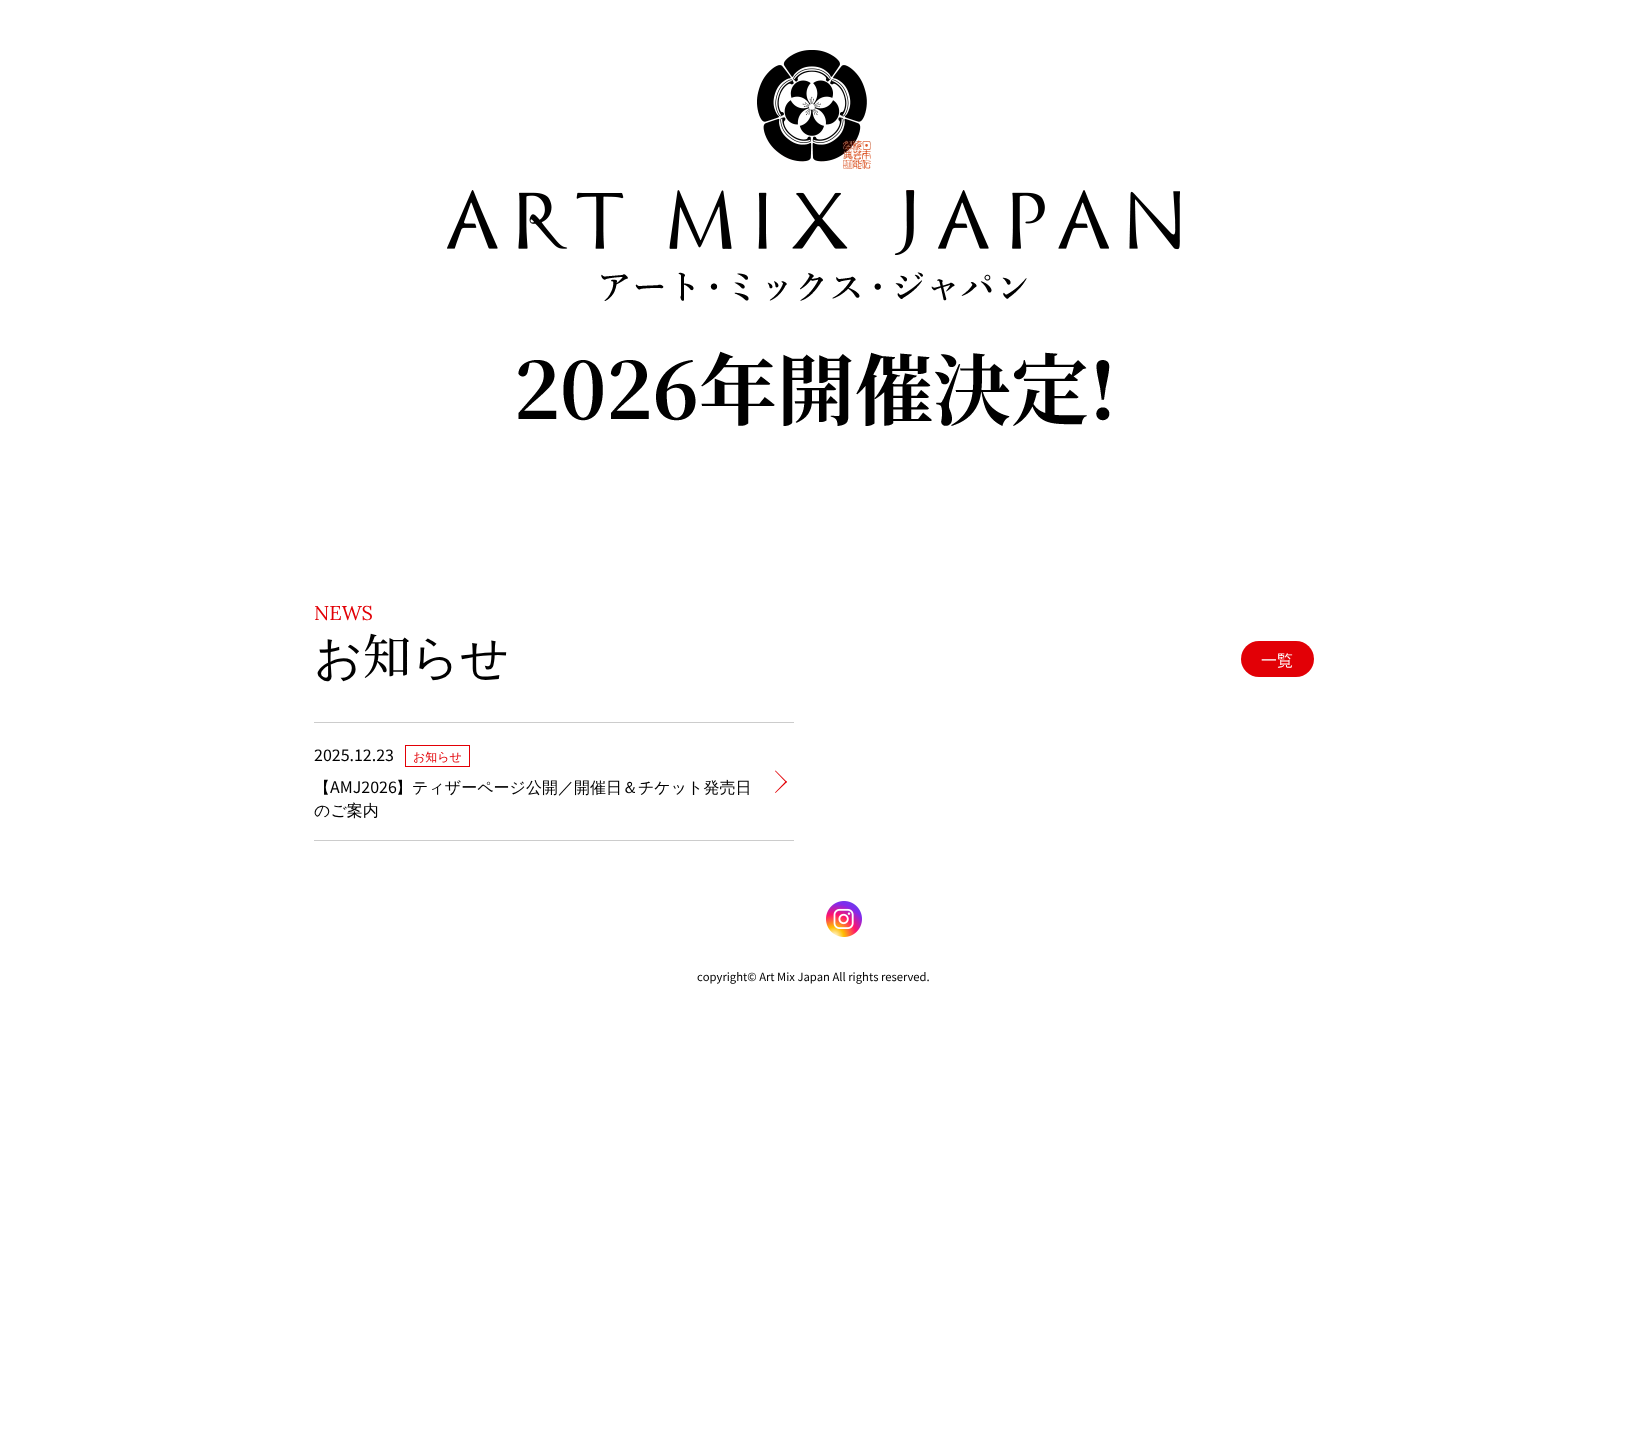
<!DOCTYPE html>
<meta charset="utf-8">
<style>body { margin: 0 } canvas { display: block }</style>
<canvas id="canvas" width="1627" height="1441"></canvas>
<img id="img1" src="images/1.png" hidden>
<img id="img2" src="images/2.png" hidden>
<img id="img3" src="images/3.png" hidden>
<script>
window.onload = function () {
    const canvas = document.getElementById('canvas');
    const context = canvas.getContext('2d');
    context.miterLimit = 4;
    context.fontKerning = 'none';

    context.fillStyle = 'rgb(255, 255, 255)';
    context.fillRect(0, 0, 1627, 1441);
    context.drawImage(document.getElementById('img1'), 447, 50, 733, 251);
    context.drawImage(document.getElementById('img2'), 518, 351, 592, 75);
    context.fillStyle = 'rgb(226, 0, 6)';
    context.beginPath();
    context.roundRect(1241, 641, 73, 36, 18);
    context.fill();
    context.fillStyle = 'rgb(204, 204, 204)';
    context.fillRect(314, 722, 480, 1);
    context.fillRect(314, 840, 480, 1);
    context.strokeStyle = 'rgb(226, 0, 6)';
    context.strokeRect(405.5, 745.5, 64, 21);
    context.fillStyle = 'rgb(226, 0, 6)';
    context.beginPath();
    context.moveTo(775.5, 770.5);
    context.lineTo(787, 782);
    context.lineTo(786, 782.5);
    context.lineTo(775, 771);
    context.closePath();
    context.fill();
    context.beginPath();
    context.moveTo(786, 781);
    context.lineTo(787, 782);
    context.lineTo(775.5, 793);
    context.lineTo(775, 792.5);
    context.closePath();
    context.fill();
    context.drawImage(document.getElementById('img3'), 826, 901, 36, 36);
    context.font = '20px Lora';
    context.fillText('NEWS', 314, 620);
    context.font = '500 48px WenQuanYi Zen Hei';
    context.fillStyle = 'rgb(0, 0, 0)';
    context.fillText('お', 314, 674);
    context.font = '500 48px Noto Serif JP';
    context.fillText('知', 363, 674);
    context.font = '500 48px WenQuanYi Zen Hei';
    context.fillText('らせ', 411, 674);
    context.font = '500 16px WenQuanYi Zen Hei';
    context.fillStyle = 'rgb(255, 255, 255)';
    context.fillText('一覧', 1261, 666);
    context.font = '16px Noto Sans JP';
    context.fillStyle = 'rgb(0, 0, 0)';
    context.fillText('2025.12.23', 314, 761);
    context.font = '500 12px WenQuanYi Zen Hei';
    context.fillStyle = 'rgb(226, 0, 6)';
    context.fillText('お知らせ', 413, 761);
    context.font = '500 16px WenQuanYi Zen Hei';
    context.fillStyle = 'rgb(0, 0, 0)';
    context.fillText('【', 314, 793);
    context.font = '16px Noto Sans JP';
    context.fillText('AMJ2026', 330, 793);
    context.font = '500 16px WenQuanYi Zen Hei';
    context.fillText('】ティザーページ公開／開催日＆チケット発売日', 396, 793);
    context.fillText('のご案内', 314, 816);
    context.font = '11.25px Noto Sans JP';
    context.fillText('copyright© Art Mix Japan All rights reserved.', 697, 981);
};
</script>
